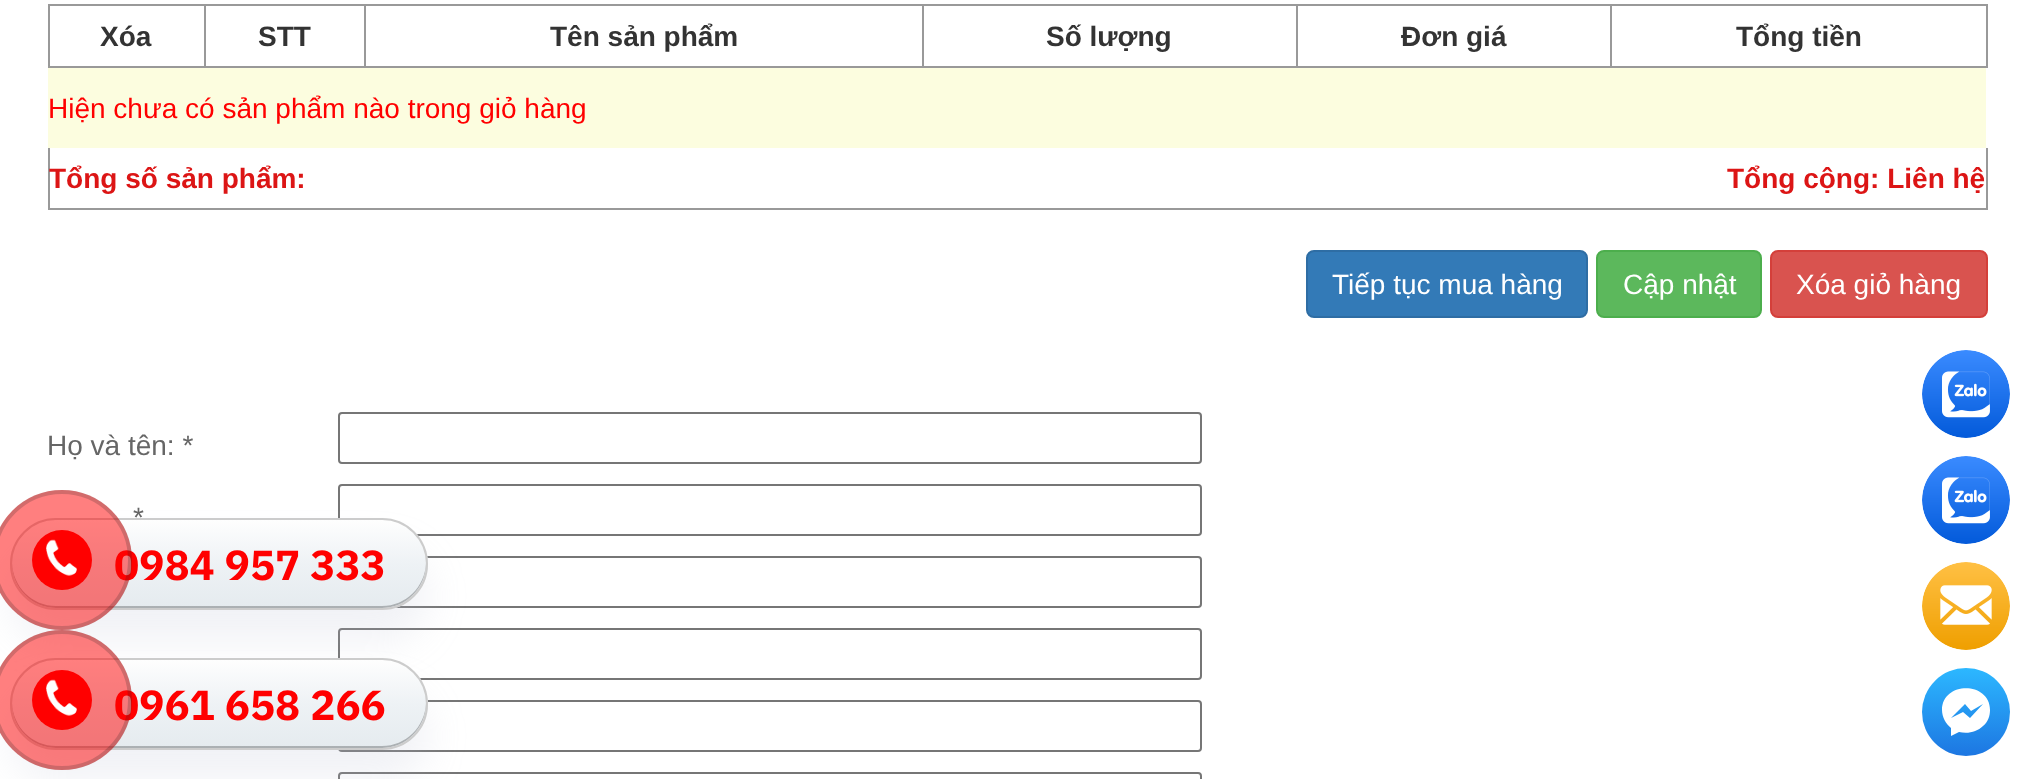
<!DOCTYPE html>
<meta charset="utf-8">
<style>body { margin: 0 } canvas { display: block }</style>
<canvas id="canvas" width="2034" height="779"></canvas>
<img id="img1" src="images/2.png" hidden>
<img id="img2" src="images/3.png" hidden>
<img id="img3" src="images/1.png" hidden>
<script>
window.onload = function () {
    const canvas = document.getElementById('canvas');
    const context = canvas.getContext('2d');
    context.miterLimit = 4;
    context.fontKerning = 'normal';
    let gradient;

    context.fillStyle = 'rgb(255, 255, 255)';
    context.fillRect(0, 0, 2034, 779);
    context.fillStyle = 'rgb(153, 153, 153)';
    context.fillRect(1610, 4, 378, 2);
    context.fillRect(1986, 4, 2, 64);
    context.fillRect(1610, 66, 378, 2);
    context.fillRect(1610, 4, 2, 64);
    context.fillRect(1296, 4, 316, 2);
    context.fillRect(1296, 66, 316, 2);
    context.fillRect(1296, 4, 2, 64);
    context.fillRect(922, 4, 376, 2);
    context.fillRect(922, 66, 376, 2);
    context.fillRect(922, 4, 2, 64);
    context.fillRect(364, 4, 560, 2);
    context.fillRect(364, 66, 560, 2);
    context.fillRect(364, 4, 2, 64);
    context.fillRect(204, 4, 162, 2);
    context.fillRect(204, 66, 162, 2);
    context.fillRect(204, 4, 2, 64);
    context.fillRect(48, 4, 158, 2);
    context.fillRect(48, 66, 158, 2);
    context.fillRect(48, 4, 2, 64);
    context.fillStyle = 'rgb(252, 253, 223)';
    context.fillRect(48, 68, 1938, 80);
    context.fillStyle = 'rgb(153, 153, 153)';
    context.fillRect(1986, 148, 2, 62);
    context.fillRect(48, 208, 1940, 2);
    context.fillRect(48, 148, 2, 62);
    context.fillStyle = 'rgb(51, 122, 183)';
    context.beginPath();
    context.roundRect(1307, 251, 280, 66, 7);
    context.fill();
    context.strokeStyle = 'rgb(46, 109, 164)';
    context.lineWidth = 2;
    context.stroke();
    context.fillStyle = 'rgb(92, 184, 92)';
    context.beginPath();
    context.roundRect(1597, 251, 164, 66, 7);
    context.fill();
    context.strokeStyle = 'rgb(76, 174, 76)';
    context.stroke();
    context.fillStyle = 'rgb(217, 83, 79)';
    context.beginPath();
    context.roundRect(1771, 251, 216, 66, 7);
    context.fill();
    context.strokeStyle = 'rgb(212, 63, 58)';
    context.stroke();
    context.beginPath();
    context.roundRect(339, 413, 862, 50, 3);
    context.strokeStyle = 'rgb(118, 118, 118)';
    context.stroke();
    context.beginPath();
    context.roundRect(339, 485, 862, 50, 3);
    context.stroke();
    context.beginPath();
    context.roundRect(339, 557, 862, 50, 3);
    context.stroke();
    context.beginPath();
    context.roundRect(339, 629, 862, 50, 3);
    context.stroke();
    context.beginPath();
    context.roundRect(339, 701, 862, 50, 3);
    context.stroke();
    context.beginPath();
    context.roundRect(339, 773, 862, 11, 3);
    context.stroke();
    context.fillStyle = 'rgba(186, 189, 212, 0.2)';
    context.filter = 'blur(19px)';
    context.beginPath();
    context.roundRect(10, 550, 418, 92, 46);
    context.fill();
    context.filter = 'none';
    context.save();
    context.beginPath();
    context.roundRect(10, 518, 418, 92, 46);
    context.clip();
    gradient = context.createLinearGradient(219, 608, 219, 520);
    gradient.addColorStop(0, 'rgb(229, 235, 239)');
    gradient.addColorStop(0.51, 'rgb(238, 242, 245)');
    gradient.addColorStop(1, 'rgb(254, 254, 254)');
    context.fillStyle = gradient;
    context.fillRect(10, 520, 418, 88);
    context.restore();
    context.fillStyle = 'rgba(0, 0, 0, 0.25)';
    context.beginPath();
    context.moveTo(12, 563);
    context.lineTo(12, 564);
    context.bezierCurveTo(12, 588, 32, 608, 56, 608);
    context.lineTo(382, 608);
    context.bezierCurveTo(406, 608, 426, 588, 426, 564);
    context.lineTo(426, 563);
    context.bezierCurveTo(425, 587, 406, 606, 382, 606);
    context.lineTo(56, 606);
    context.bezierCurveTo(32, 606, 13, 587, 12, 563);
    context.closePath();
    context.fill();
    context.beginPath();
    context.roundRect(11, 519, 416, 90, 45);
    context.strokeStyle = 'rgb(204, 204, 204)';
    context.stroke();
    context.fillStyle = 'rgb(255, 0, 0)';
    context.beginPath();
    context.arc(62, 560, 30, 0, 2 * Math.PI);
    context.fill();
    context.drawImage(document.getElementById('img1'), 1922, 350, 88, 88);
    context.drawImage(document.getElementById('img1'), 1922, 456, 88, 88);
    context.drawImage(document.getElementById('img2'), 1922, 562, 88, 88);
    gradient = context.createLinearGradient(1965, 755, 1965, 669);
    gradient.addColorStop(0, 'rgb(29, 119, 226)');
    gradient.addColorStop(1, 'rgb(44, 183, 255)');
    context.fillStyle = gradient;
    context.beginPath();
    context.arc(1966, 712, 44, 0, 2 * Math.PI);
    context.fill();
    context.fillStyle = 'rgb(255, 255, 255)';
    context.beginPath();
    context.moveTo(1942, 710);
    context.bezierCurveTo(1942, 681, 1990, 681, 1990, 710);
    context.bezierCurveTo(1990, 716, 1988, 722, 1983, 726);
    context.bezierCurveTo(1977, 732, 1968, 734, 1959, 732);
    context.lineTo(1951, 736);
    context.lineTo(1951, 728);
    context.bezierCurveTo(1946, 724, 1942, 717, 1942, 710);
    context.closePath();
    context.moveTo(1963, 712);
    context.lineTo(1970, 718);
    context.lineTo(1983, 704);
    context.lineTo(1971, 711);
    context.lineTo(1965, 704);
    context.lineTo(1951, 718);
    context.closePath();
    context.fill('evenodd');
    context.fillStyle = 'rgba(186, 189, 212, 0.2)';
    context.filter = 'blur(19px)';
    context.beginPath();
    context.roundRect(10, 690, 418, 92, 46);
    context.fill();
    context.filter = 'none';
    context.save();
    context.beginPath();
    context.roundRect(10, 658, 418, 92, 46);
    context.clip();
    gradient = context.createLinearGradient(219, 748, 219, 660);
    gradient.addColorStop(0, 'rgb(229, 235, 239)');
    gradient.addColorStop(0.51, 'rgb(238, 242, 245)');
    gradient.addColorStop(1, 'rgb(254, 254, 254)');
    context.fillStyle = gradient;
    context.fillRect(10, 660, 418, 88);
    context.restore();
    context.fillStyle = 'rgba(0, 0, 0, 0.25)';
    context.beginPath();
    context.moveTo(12, 703);
    context.lineTo(12, 704);
    context.bezierCurveTo(12, 728, 32, 748, 56, 748);
    context.lineTo(382, 748);
    context.bezierCurveTo(406, 748, 426, 728, 426, 704);
    context.lineTo(426, 703);
    context.bezierCurveTo(425, 727, 406, 746, 382, 746);
    context.lineTo(56, 746);
    context.bezierCurveTo(32, 746, 13, 727, 12, 703);
    context.closePath();
    context.fill();
    context.beginPath();
    context.roundRect(11, 659, 416, 90, 45);
    context.stroke();
    context.fillStyle = 'rgb(255, 0, 0)';
    context.beginPath();
    context.arc(62, 700, 30, 0, 2 * Math.PI);
    context.fill();
    context.font = 'bold 28px Liberation Sans';
    context.fillStyle = 'rgb(51, 51, 51)';
    context.fillText('Xóa', 100, 46);
    context.fillText('STT', 258, 46);
    context.fillText('Tên sản phẩm', 550, 46);
    context.fillText('Số lượng', 1046, 46);
    context.fillText('Đơn giá', 1401, 46);
    context.fillText('Tổng tiền', 1736, 46);
    context.font = '28px Liberation Sans';
    context.fillStyle = 'rgb(255, 0, 0)';
    context.fillText('Hiện chưa có sản phẩm nào trong giỏ hàng', 48, 118);
    context.font = 'bold 28px Liberation Sans';
    context.fillStyle = 'rgb(220, 21, 21)';
    context.fillText('Tổng số sản phẩm:', 49, 188);
    context.fillText('Tổng cộng: Liên hệ', 1727, 188);
    context.font = '28px Liberation Sans';
    context.fillStyle = 'rgb(255, 255, 255)';
    context.fillText('Tiếp tục mua hàng', 1332, 294);
    context.fillText('Cập nhật', 1623, 294);
    context.fillText('Xóa giỏ hàng', 1796, 294);
    context.fillStyle = 'rgb(102, 102, 102)';
    context.fillText('Họ và tên: *', 47, 455);
    context.fillText('*', 133, 527);
    context.font = 'bold 42px IBM Plex Sans';
    context.fillStyle = 'rgb(255, 0, 0)';
    context.fillText('0984 957 333', 114, 580);
    context.fillStyle = 'rgba(255, 0, 0, 0.5)';
    context.beginPath();
    context.arc(62, 560, 70, 0, 2 * Math.PI);
    context.fill();
    context.beginPath();
    context.arc(62, 560, 68, 0, 2 * Math.PI);
    context.strokeStyle = 'rgba(30, 30, 30, 0.2)';
    context.lineWidth = 4;
    context.stroke();
    context.drawImage(document.getElementById('img3'), 46, 539, 31, 37);
    context.fillStyle = 'rgb(255, 0, 0)';
    context.fillText('0961 658 266', 114, 720);
    context.fillStyle = 'rgba(255, 0, 0, 0.5)';
    context.beginPath();
    context.arc(62, 700, 70, 0, 2 * Math.PI);
    context.fill();
    context.beginPath();
    context.arc(62, 700, 68, 0, 2 * Math.PI);
    context.stroke();
    context.drawImage(document.getElementById('img3'), 46, 679, 31, 37);
};
</script>
